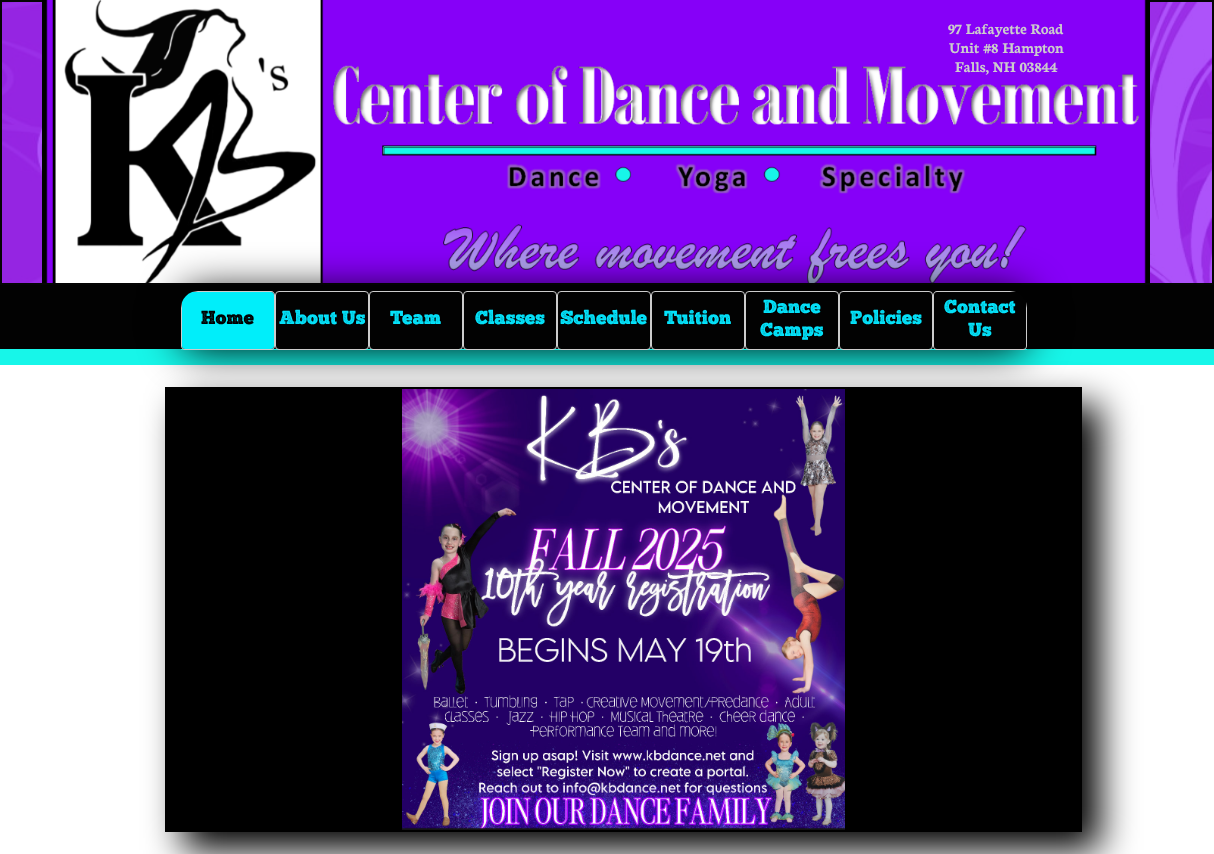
<!DOCTYPE html>
<meta charset="utf-8">
<style>body { margin: 0 } canvas { display: block }</style>
<canvas id="canvas" width="1214" height="854"></canvas>
<img id="img1" src="images/1.png" hidden>
<img id="img2" src="images/2.png" hidden>
<img id="img3" src="images/3.png" hidden>
<script>
window.onload = function () {
    const canvas = document.getElementById('canvas');
    const context = canvas.getContext('2d');
    context.miterLimit = 4;
    context.fontKerning = 'normal';

    context.fillStyle = 'rgb(255, 255, 255)';
    context.fillRect(0, 0, 1214, 854);
    context.fillStyle = 'rgb(152, 38, 249)';
    context.fillRect(2, 2, 1210, 281);
    context.drawImage(document.getElementById('img1'), 2, 2, 1210, 281);
    context.strokeStyle = 'rgb(5, 5, 5)';
    context.lineWidth = 2;
    context.strokeRect(1, 1, 1212, 283);
    context.drawImage(document.getElementById('img2'), 42, 0, 1108, 283);
    context.fillStyle = 'rgb(2, 2, 2)';
    context.fillRect(0, 285, 1214, 64);
    context.fillStyle = 'rgb(23, 246, 233)';
    context.fillRect(0, 349, 1214, 16);
    context.save();
    context.beginPath();
    context.moveTo(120, 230);
    context.lineTo(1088, 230);
    context.lineTo(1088, 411);
    context.lineTo(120, 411);
    context.closePath();
    context.moveTo(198, 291);
    context.lineTo(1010, 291);
    context.bezierCurveTo(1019.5, 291, 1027, 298.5, 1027, 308);
    context.lineTo(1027, 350);
    context.lineTo(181, 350);
    context.lineTo(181, 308);
    context.bezierCurveTo(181, 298.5, 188.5, 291, 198, 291);
    context.closePath();
    context.clip('evenodd');
    context.fillStyle = 'rgb(0, 0, 0)';
    context.filter = 'blur(20px)';
    context.beginPath();
    context.roundRect(181, 291, 846, 59, 17);
    context.fill();
    context.filter = 'none';
    context.restore();
    context.fillStyle = 'rgb(0, 0, 0)';
    context.fillRect(165, 387, 917, 445);
    context.save();
    context.beginPath();
    context.moveTo(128, 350);
    context.lineTo(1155, 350);
    context.lineTo(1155, 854);
    context.lineTo(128, 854);
    context.closePath();
    context.moveTo(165, 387);
    context.lineTo(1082, 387);
    context.lineTo(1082, 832);
    context.lineTo(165, 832);
    context.closePath();
    context.clip('evenodd');
    context.filter = 'blur(18px)';
    context.beginPath();
    context.rect(183, 405, 917, 445);
    context.fill();
    context.filter = 'none';
    context.restore();
    context.drawImage(document.getElementById('img3'), 402, 389, 443, 441);
    context.save();
    context.beginPath();
    context.roundRect(181, 291, 846, 59, [17, 17, 0, 0]);
    context.clip();
    context.fillStyle = 'rgb(0, 238, 250)';
    context.beginPath();
    context.roundRect(182, 292, 92, 57, 3);
    context.fill();
    context.restore();
    context.fillStyle = 'rgb(204, 204, 204)';
    context.beginPath();
    context.moveTo(198, 291);
    context.lineTo(192, 292);
    context.lineTo(271, 292);
    context.bezierCurveTo(273, 292, 274, 293, 274, 295);
    context.lineTo(274, 346);
    context.bezierCurveTo(274, 348, 273, 349, 271, 349);
    context.lineTo(185, 349);
    context.bezierCurveTo(183, 349, 182, 348, 182, 346);
    context.lineTo(182, 302);
    context.lineTo(181, 308);
    context.lineTo(181, 346);
    context.bezierCurveTo(181, 348, 183, 350, 185, 350);
    context.lineTo(271, 350);
    context.bezierCurveTo(273, 350, 275, 348, 275, 346);
    context.lineTo(275, 295);
    context.bezierCurveTo(275, 293, 273, 291, 271, 291);
    context.closePath();
    context.fill();
    context.beginPath();
    context.roundRect(275.5, 291.5, 93, 58, 3.5);
    context.strokeStyle = 'rgb(204, 204, 204)';
    context.lineWidth = 1;
    context.stroke();
    context.beginPath();
    context.roundRect(369.5, 291.5, 93, 58, 3.5);
    context.stroke();
    context.beginPath();
    context.roundRect(463.5, 291.5, 93, 58, 3.5);
    context.stroke();
    context.beginPath();
    context.roundRect(557.5, 291.5, 93, 58, 3.5);
    context.stroke();
    context.beginPath();
    context.roundRect(651.5, 291.5, 93, 58, 3.5);
    context.stroke();
    context.beginPath();
    context.roundRect(745.5, 291.5, 93, 58, 3.5);
    context.stroke();
    context.beginPath();
    context.roundRect(839.5, 291.5, 93, 58, 3.5);
    context.stroke();
    context.beginPath();
    context.moveTo(937, 291);
    context.bezierCurveTo(935, 291, 933, 293, 933, 295);
    context.lineTo(933, 346);
    context.bezierCurveTo(933, 348, 935, 350, 937, 350);
    context.lineTo(1023, 350);
    context.bezierCurveTo(1025, 350, 1027, 348, 1027, 346);
    context.lineTo(1027, 308);
    context.lineTo(1026, 302);
    context.lineTo(1026, 346);
    context.bezierCurveTo(1026, 348, 1025, 349, 1023, 349);
    context.lineTo(937, 349);
    context.bezierCurveTo(935, 349, 934, 348, 934, 346);
    context.lineTo(934, 295);
    context.bezierCurveTo(934, 293, 935, 292, 937, 292);
    context.lineTo(1016, 292);
    context.lineTo(1010, 291);
    context.closePath();
    context.fill();
    context.font = 'bold 16px Neuton';
    context.fillText('97 Lafayette Road', 948, 34);
    context.fillText('Unit #8 Hampton', 949, 53);
    context.fillText('Falls, NH 03844', 955, 72);
    context.font = '19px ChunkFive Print';
    context.fillStyle = 'rgb(0, 0, 0)';
    context.fillText('Home', 201, 324);
    context.fillStyle = 'rgb(4, 226, 250)';
    context.fillText('About Us', 279, 324);
    context.fillText('Team', 390, 324);
    context.fillText('Classes', 475, 324);
    context.fillText('Schedule', 560, 324);
    context.fillText('Tuition', 664, 324);
    context.fillText('Dance', 763, 313);
    context.fillText('Camps', 760, 336);
    context.fillText('Policies', 850, 324);
    context.fillText('Contact', 944, 313);
    context.fillText('Us', 968, 336);
};
</script>
